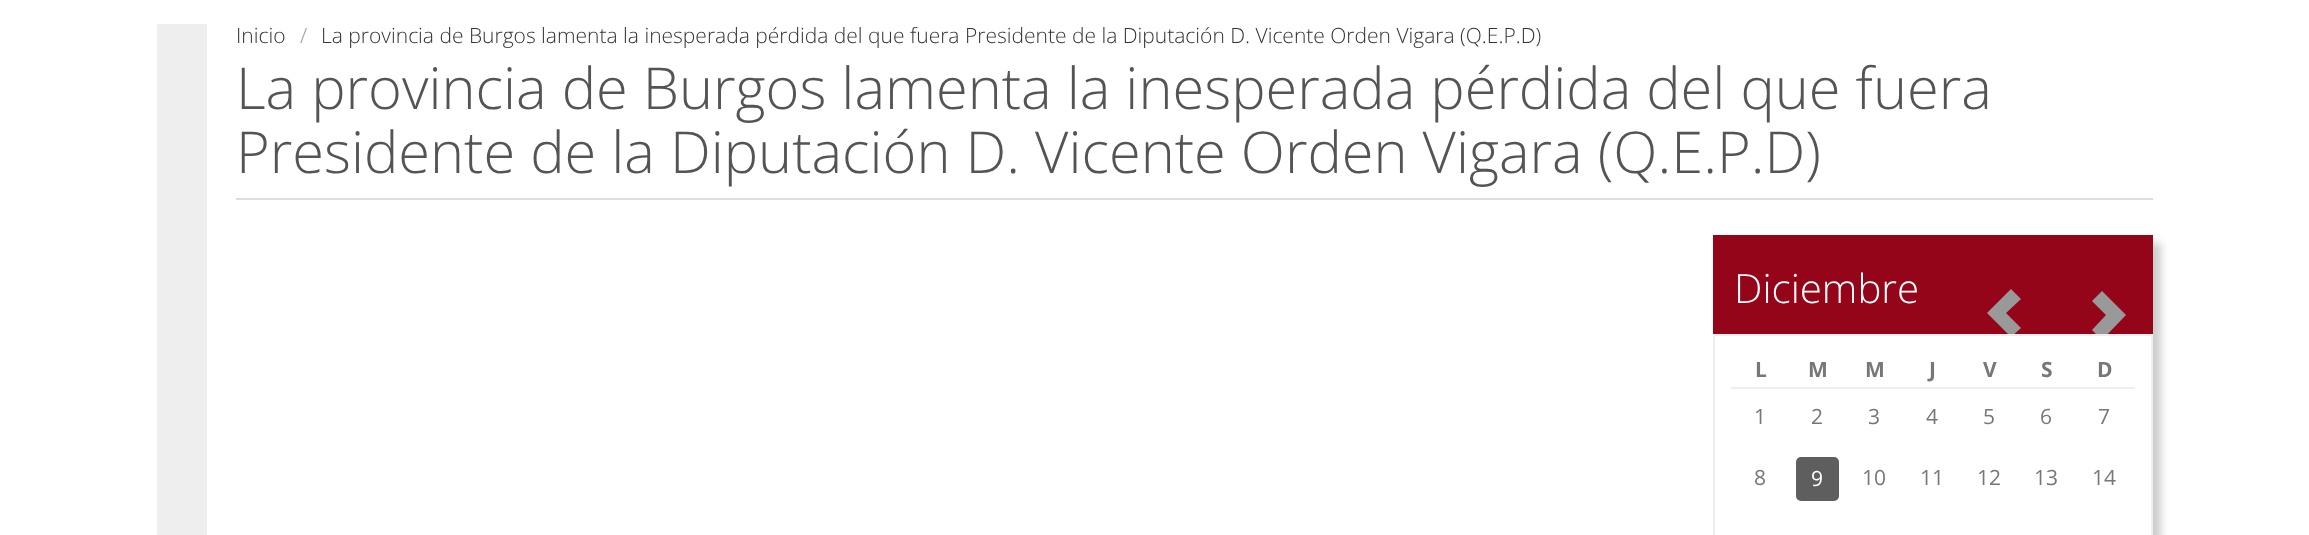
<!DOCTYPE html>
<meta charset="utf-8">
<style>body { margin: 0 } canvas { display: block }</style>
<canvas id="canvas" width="2309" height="535"></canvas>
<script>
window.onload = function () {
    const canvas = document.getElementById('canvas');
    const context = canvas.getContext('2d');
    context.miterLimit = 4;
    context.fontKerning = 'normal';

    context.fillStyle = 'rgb(255, 255, 255)';
    context.fillRect(0, 0, 2309, 535);
    context.fillStyle = 'rgb(238, 238, 238)';
    context.fillRect(157, 24, 50, 511);
    context.fillStyle = 'rgb(221, 221, 221)';
    context.fillRect(236, 198, 1917, 2);
    context.save();
    context.beginPath();
    context.moveTo(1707, 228);
    context.lineTo(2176, 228);
    context.lineTo(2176, 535);
    context.lineTo(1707, 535);
    context.closePath();
    context.moveTo(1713, 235);
    context.lineTo(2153, 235);
    context.lineTo(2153, 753);
    context.lineTo(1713, 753);
    context.closePath();
    context.clip('evenodd');
    context.fillStyle = 'rgb(204, 204, 204)';
    context.filter = 'blur(4.5px)';
    context.beginPath();
    context.rect(1722, 243, 439, 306);
    context.fill();
    context.filter = 'none';
    context.restore();
    context.fillStyle = 'rgb(149, 5, 25)';
    context.fillRect(1713, 235, 440, 99);
    context.save();
    context.beginPath();
    context.rect(1713, 235, 440, 99);
    context.clip();
    context.fillStyle = 'rgb(153, 153, 153)';
    context.beginPath();
    context.moveTo(1987, 313);
    context.lineTo(2011, 337);
    context.lineTo(2021, 328);
    context.lineTo(2006, 313);
    context.lineTo(2021, 299);
    context.lineTo(2011, 289);
    context.closePath();
    context.fill();
    context.beginPath();
    context.moveTo(2092, 330);
    context.lineTo(2106, 315);
    context.lineTo(2092, 301);
    context.lineTo(2102, 291);
    context.lineTo(2126, 315);
    context.lineTo(2102, 340);
    context.closePath();
    context.fill();
    context.restore();
    context.strokeStyle = 'rgb(238, 238, 238)';
    context.lineWidth = 2;
    context.strokeRect(1714, 335, 438, 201);
    context.fillStyle = 'rgb(238, 238, 238)';
    context.fillRect(1731, 387, 404, 2);
    context.fillStyle = 'rgb(94, 94, 94)';
    context.beginPath();
    context.roundRect(1796, 457, 43, 44, 5);
    context.fill();
    context.font = '300 21px Open Sans';
    context.fillStyle = 'rgb(51, 51, 51)';
    context.fillText('Inicio', 236, 43);
    context.fillStyle = 'rgb(153, 153, 153)';
    context.fillText('/', 300, 43);
    context.fillStyle = 'rgb(51, 51, 51)';
    context.fillText('La provincia de Burgos lamenta la inesperada pérdida del que fuera Presidente de la Diputación D. Vicente Orden Vigara (Q.E.P.D)', 321, 43);
    context.font = '300 57.75px Open Sans';
    context.fillStyle = 'rgb(84, 84, 84)';
    context.fillText('La provincia de Burgos lamenta la inesperada pérdida del que fuera', 236, 109);
    context.fillText('Presidente de la Diputación D. Vicente Orden Vigara (Q.E.P.D)', 236, 173);
    context.font = '300 40.25px Open Sans';
    context.fillStyle = 'rgb(255, 255, 255)';
    context.fillText('Diciembre', 1734, 303);
    context.font = 'bold 21px Open Sans';
    context.fillStyle = 'rgb(119, 119, 119)';
    context.fillText('L', 1755, 377);
    context.fillText('M', 1808, 377);
    context.fillText('M', 1865, 377);
    context.fillText('J', 1929, 377);
    context.fillText('V', 1983, 377);
    context.fillText('S', 2041, 377);
    context.fillText('D', 2097, 377);
    context.font = '21px Open Sans';
    context.fillText('1', 1754, 424);
    context.fillText('2', 1811, 424);
    context.fillText('3', 1868, 424);
    context.fillText('4', 1926, 424);
    context.fillText('5', 1983, 424);
    context.fillText('6', 2040, 424);
    context.fillText('7', 2098, 424);
    context.fillText('8', 1754, 485);
    context.fillStyle = 'rgb(255, 255, 255)';
    context.fillText('9', 1811, 486);
    context.fillStyle = 'rgb(119, 119, 119)';
    context.fillText('10', 1862, 485);
    context.fillText('11', 1920, 485);
    context.fillText('12', 1977, 485);
    context.fillText('13', 2034, 485);
    context.fillText('14', 2092, 485);
};
</script>
